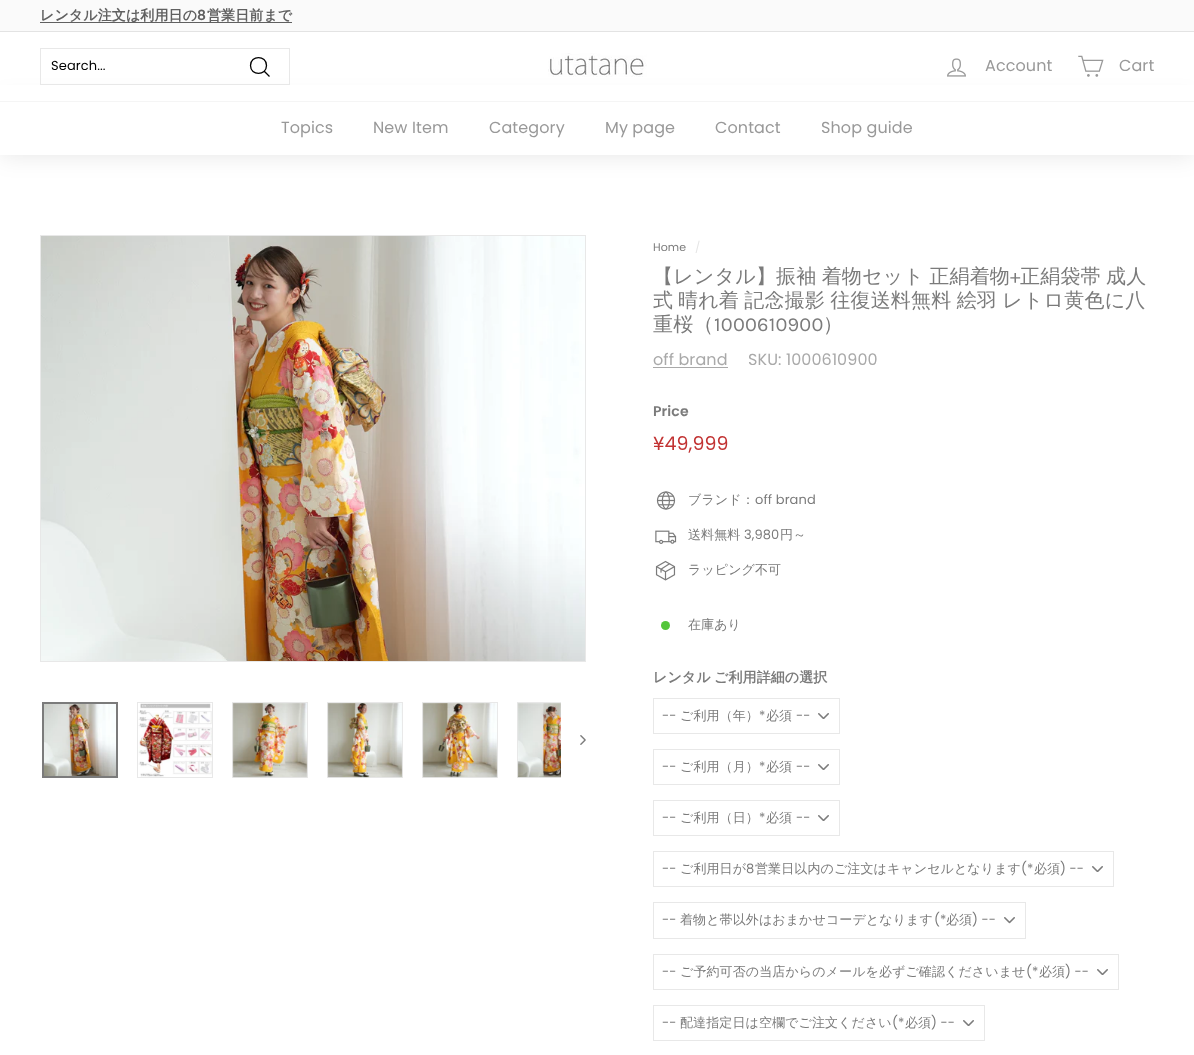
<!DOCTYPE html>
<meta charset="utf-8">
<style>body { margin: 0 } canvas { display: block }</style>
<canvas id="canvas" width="1194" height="1055"></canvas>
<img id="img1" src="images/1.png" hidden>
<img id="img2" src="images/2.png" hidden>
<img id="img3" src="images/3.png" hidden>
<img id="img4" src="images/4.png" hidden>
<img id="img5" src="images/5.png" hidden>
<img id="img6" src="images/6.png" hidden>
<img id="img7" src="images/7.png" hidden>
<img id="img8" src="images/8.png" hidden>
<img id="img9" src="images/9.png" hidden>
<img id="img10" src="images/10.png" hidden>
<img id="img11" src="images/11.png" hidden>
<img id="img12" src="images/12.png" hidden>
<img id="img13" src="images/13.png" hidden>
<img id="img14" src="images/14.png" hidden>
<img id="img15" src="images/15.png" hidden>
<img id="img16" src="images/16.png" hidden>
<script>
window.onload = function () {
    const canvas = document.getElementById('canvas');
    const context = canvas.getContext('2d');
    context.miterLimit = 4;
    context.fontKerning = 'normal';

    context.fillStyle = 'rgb(255, 255, 255)';
    context.fillRect(0, 0, 1194, 1055);
    context.fillStyle = 'rgb(250, 250, 250)';
    context.fillRect(0, 0, 1194, 31);
    context.fillStyle = 'rgb(96, 96, 96)';
    context.fillRect(40, 22, 252, 1);
    context.fillStyle = 'rgb(227, 227, 227)';
    context.fillRect(0, 31, 1194, 1);
    context.fillStyle = 'rgba(0, 0, 0, 0.1)';
    context.filter = 'blur(12.5px)';
    context.beginPath();
    context.rect(0, 101, 1194, 54);
    context.fill();
    context.filter = 'none';
    context.fillStyle = 'rgb(255, 255, 255)';
    context.fillRect(0, 85, 1194, 16);
    context.strokeStyle = 'rgb(232, 232, 232)';
    context.strokeRect(40.5, 48.5, 249, 36);
    context.beginPath();
    context.moveTo(266.5, 65.5);
    context.bezierCurveTo(266.5, 76, 250.5, 76, 250.5, 65.5);
    context.bezierCurveTo(250.5, 55, 266.5, 55, 266.5, 65.5);
    context.closePath();
    context.moveTo(269.5, 76.5);
    context.lineTo(264.5, 71.5);
    context.strokeStyle = 'rgb(0, 0, 0)';
    context.lineWidth = 1.3;
    context.stroke();
    context.drawImage(document.getElementById('img1'), 548, 53, 99, 24);
    context.drawImage(document.getElementById('img2'), 947, 58, 19, 19);
    context.drawImage(document.getElementById('img3'), 1078, 55, 26, 22);
    context.fillRect(0, 102, 1194, 53);
    context.fillStyle = 'rgb(245, 245, 245)';
    context.fillRect(0, 101, 1194, 1);
    context.strokeStyle = 'rgb(232, 232, 232)';
    context.lineWidth = 1;
    context.strokeRect(40.5, 235.5, 545, 426);
    context.drawImage(document.getElementById('img4'), 41, 236, 544, 425);
    context.drawImage(document.getElementById('img5'), 44, 704, 72, 72);
    context.strokeStyle = 'rgb(123, 123, 123)';
    context.lineWidth = 2;
    context.strokeRect(43, 703, 74, 74);
    context.strokeStyle = 'rgb(232, 232, 232)';
    context.lineWidth = 1;
    context.strokeRect(137.5, 702.5, 75, 75);
    context.drawImage(document.getElementById('img6'), 138, 703, 74, 74);
    context.strokeRect(232.5, 702.5, 75, 75);
    context.drawImage(document.getElementById('img7'), 232, 703, 76, 75);
    context.strokeRect(327.5, 702.5, 75, 75);
    context.drawImage(document.getElementById('img8'), 327, 703, 76, 75);
    context.strokeRect(422.5, 702.5, 75, 75);
    context.drawImage(document.getElementById('img9'), 422, 703, 76, 75);
    context.save();
    context.beginPath();
    context.rect(517, 702, 69, 76);
    context.clip();
    context.strokeRect(517.5, 702.5, 75, 75);
    context.restore();
    context.drawImage(document.getElementById('img10'), 517, 703, 44, 75);
    context.fillStyle = 'rgb(255, 255, 255)';
    context.fillRect(561, 702, 25, 76);
    context.drawImage(document.getElementById('img11'), 580, 735, 6, 10);
    context.fillStyle = 'rgb(169, 169, 169)';
    context.fillRect(653, 367, 75, 1);
    context.drawImage(document.getElementById('img12'), 656, 491, 20, 19);
    context.drawImage(document.getElementById('img13'), 655, 530, 22, 14);
    context.drawImage(document.getElementById('img14'), 655, 560, 21, 21);
    context.fillStyle = 'rgb(84, 198, 58)';
    context.beginPath();
    context.arc(665.5, 625.5, 4.5, 0, 2 * Math.PI);
    context.fill();
    context.drawImage(document.getElementById('img15'), 818, 713, 11, 6);
    context.strokeRect(653.5, 698.5, 186, 35);
    context.drawImage(document.getElementById('img15'), 818, 764, 11, 6);
    context.strokeRect(653.5, 749.5, 186, 35);
    context.drawImage(document.getElementById('img15'), 818, 815, 11, 6);
    context.strokeRect(653.5, 800.5, 186, 35);
    context.drawImage(document.getElementById('img15'), 1092, 866, 11, 6);
    context.strokeRect(653.5, 851.5, 460, 35);
    context.drawImage(document.getElementById('img16'), 1004, 917, 11, 7);
    context.strokeRect(653.5, 902.5, 372, 36);
    context.drawImage(document.getElementById('img15'), 1097, 969, 11, 6);
    context.strokeRect(653.5, 954.5, 465, 35);
    context.drawImage(document.getElementById('img15'), 963, 1020, 11, 6);
    context.strokeRect(653.5, 1005.5, 331, 35);
    context.letterSpacing = '0.1px';
    context.font = 'bold 14px WenQuanYi Zen Hei';
    context.fillStyle = 'rgb(96, 96, 96)';
    context.fillText('レンタル注文は利用日の', 40, 20);
    context.font = '600 14px Poppins';
    context.fillText('8', 197, 20);
    context.font = 'bold 14px WenQuanYi Zen Hei';
    context.fillText('営業日前まで', 207, 20);
    context.font = '13px Poppins';
    context.fillStyle = 'rgb(0, 0, 0)';
    context.fillText('Search...', 51, 70);
    context.font = '16px Poppins';
    context.fillStyle = 'rgb(153, 153, 153)';
    context.fillText('Account', 985, 71);
    context.fillText('Cart', 1119, 71);
    context.fillText('Topics', 281, 133);
    context.fillText('New Item', 373, 133);
    context.fillText('Category', 489, 133);
    context.fillText('My page', 605, 133);
    context.fillText('Contact', 715, 133);
    context.fillText('Shop guide', 821, 133);
    context.font = '11px Poppins';
    context.fillStyle = 'rgb(123, 123, 123)';
    context.fillText('Home', 653, 251);
    context.fillStyle = 'rgb(229, 229, 229)';
    context.fillText('/', 695, 251);
    context.letterSpacing = '0.2px';
    context.wordSpacing = '-1px';
    context.font = '500 20px WenQuanYi Zen Hei';
    context.fillStyle = 'rgb(123, 123, 123)';
    context.fillText('【レンタル】振袖 着物セット 正絹着物', 653, 283);
    context.wordSpacing = '0px';
    context.font = '20px Karla';
    context.fillText('+', 1010, 283);
    context.wordSpacing = '-1px';
    context.font = '500 20px WenQuanYi Zen Hei';
    context.fillText('正絹袋帯 成人', 1020, 283);
    context.wordSpacing = '0px';
    context.fillText('式', 653, 307);
    context.wordSpacing = '-1px';
    context.fillText('晴れ着 記念撮影 往復送料無料 絵羽 レトロ黄色に八', 678, 307);
    context.wordSpacing = '0px';
    context.fillText('重桜（', 653, 331);
    context.font = '20px Karla';
    context.fillText('1000610900', 714, 331);
    context.font = '500 20px WenQuanYi Zen Hei';
    context.fillText('）', 823, 331);
    context.letterSpacing = '0.1px';
    context.font = '16px Poppins';
    context.fillStyle = 'rgb(169, 169, 169)';
    context.fillText('off brand', 653, 365);
    context.fillText('SKU: 1000610900', 748, 365);
    context.font = '600 14px Poppins';
    context.fillStyle = 'rgb(123, 123, 123)';
    context.fillText('Price', 653, 416);
    context.font = '19px Poppins';
    context.fillStyle = 'rgb(194, 51, 51)';
    context.fillText('¥49,999', 653, 450);
    context.font = '500 13px WenQuanYi Zen Hei';
    context.fillStyle = 'rgb(123, 123, 123)';
    context.fillText('ブランド：', 688, 504);
    context.font = '13px Poppins';
    context.fillText('off brand', 755, 504);
    context.font = '500 13px WenQuanYi Zen Hei';
    context.fillText('送料無料', 688, 539);
    context.font = '13px Poppins';
    context.fillText('3,980', 744, 539);
    context.font = '500 13px WenQuanYi Zen Hei';
    context.fillText('円～', 780, 539);
    context.fillText('ラッピング不可', 688, 574);
    context.fillText('在庫あり', 688, 629);
    context.wordSpacing = '-1px';
    context.font = 'bold 14px WenQuanYi Zen Hei';
    context.fillText('レンタル ご利用詳細の選択', 653, 682);
    context.wordSpacing = '0px';
    context.font = '13px Poppins';
    context.fillText('--', 662, 720);
    context.font = '500 13px WenQuanYi Zen Hei';
    context.fillText('ご利用（年）', 680, 720);
    context.font = '13px Poppins';
    context.fillText('*', 759, 720);
    context.font = '500 13px WenQuanYi Zen Hei';
    context.fillText('必須', 766, 720);
    context.font = '13px Poppins';
    context.fillText('--', 796, 720);
    context.fillText('--', 662, 771);
    context.font = '500 13px WenQuanYi Zen Hei';
    context.fillText('ご利用（月）', 680, 771);
    context.font = '13px Poppins';
    context.fillText('*', 759, 771);
    context.font = '500 13px WenQuanYi Zen Hei';
    context.fillText('必須', 766, 771);
    context.font = '13px Poppins';
    context.fillText('--', 796, 771);
    context.fillText('--', 662, 822);
    context.font = '500 13px WenQuanYi Zen Hei';
    context.fillText('ご利用（日）', 680, 822);
    context.font = '13px Poppins';
    context.fillText('*', 759, 822);
    context.font = '500 13px WenQuanYi Zen Hei';
    context.fillText('必須', 766, 822);
    context.font = '13px Poppins';
    context.fillText('--', 796, 822);
    context.fillText('--', 662, 873);
    context.font = '500 13px WenQuanYi Zen Hei';
    context.fillText('ご利用日が', 680, 873);
    context.font = '13px Poppins';
    context.fillText('8', 746, 873);
    context.font = '500 13px WenQuanYi Zen Hei';
    context.fillText('営業日以内のご注文はキャンセルとなります', 755, 873);
    context.font = '13px Poppins';
    context.fillText('(*', 1021, 873);
    context.font = '500 13px WenQuanYi Zen Hei';
    context.fillText('必須', 1034, 873);
    context.font = '13px Poppins';
    context.fillText(') --', 1060, 873);
    context.fillText('--', 662, 924);
    context.font = '500 13px WenQuanYi Zen Hei';
    context.fillText('着物と帯以外はおまかせコーデとなります', 680, 924);
    context.font = '13px Poppins';
    context.fillText('(*', 934, 924);
    context.font = '500 13px WenQuanYi Zen Hei';
    context.fillText('必須', 946, 924);
    context.font = '13px Poppins';
    context.fillText(') --', 972, 924);
    context.fillText('--', 662, 976);
    context.font = '500 13px WenQuanYi Zen Hei';
    context.fillText('ご予約可否の当店からのメールを必ずご確認くださいませ', 680, 976);
    context.font = '13px Poppins';
    context.fillText('(*', 1026, 976);
    context.font = '500 13px WenQuanYi Zen Hei';
    context.fillText('必須', 1039, 976);
    context.font = '13px Poppins';
    context.fillText(') --', 1065, 976);
    context.fillText('--', 662, 1027);
    context.font = '500 13px WenQuanYi Zen Hei';
    context.fillText('配達指定日は空欄でご注文ください', 680, 1027);
    context.font = '13px Poppins';
    context.fillText('(*', 892, 1027);
    context.font = '500 13px WenQuanYi Zen Hei';
    context.fillText('必須', 905, 1027);
    context.font = '13px Poppins';
    context.fillText(') --', 931, 1027);
};
</script>
